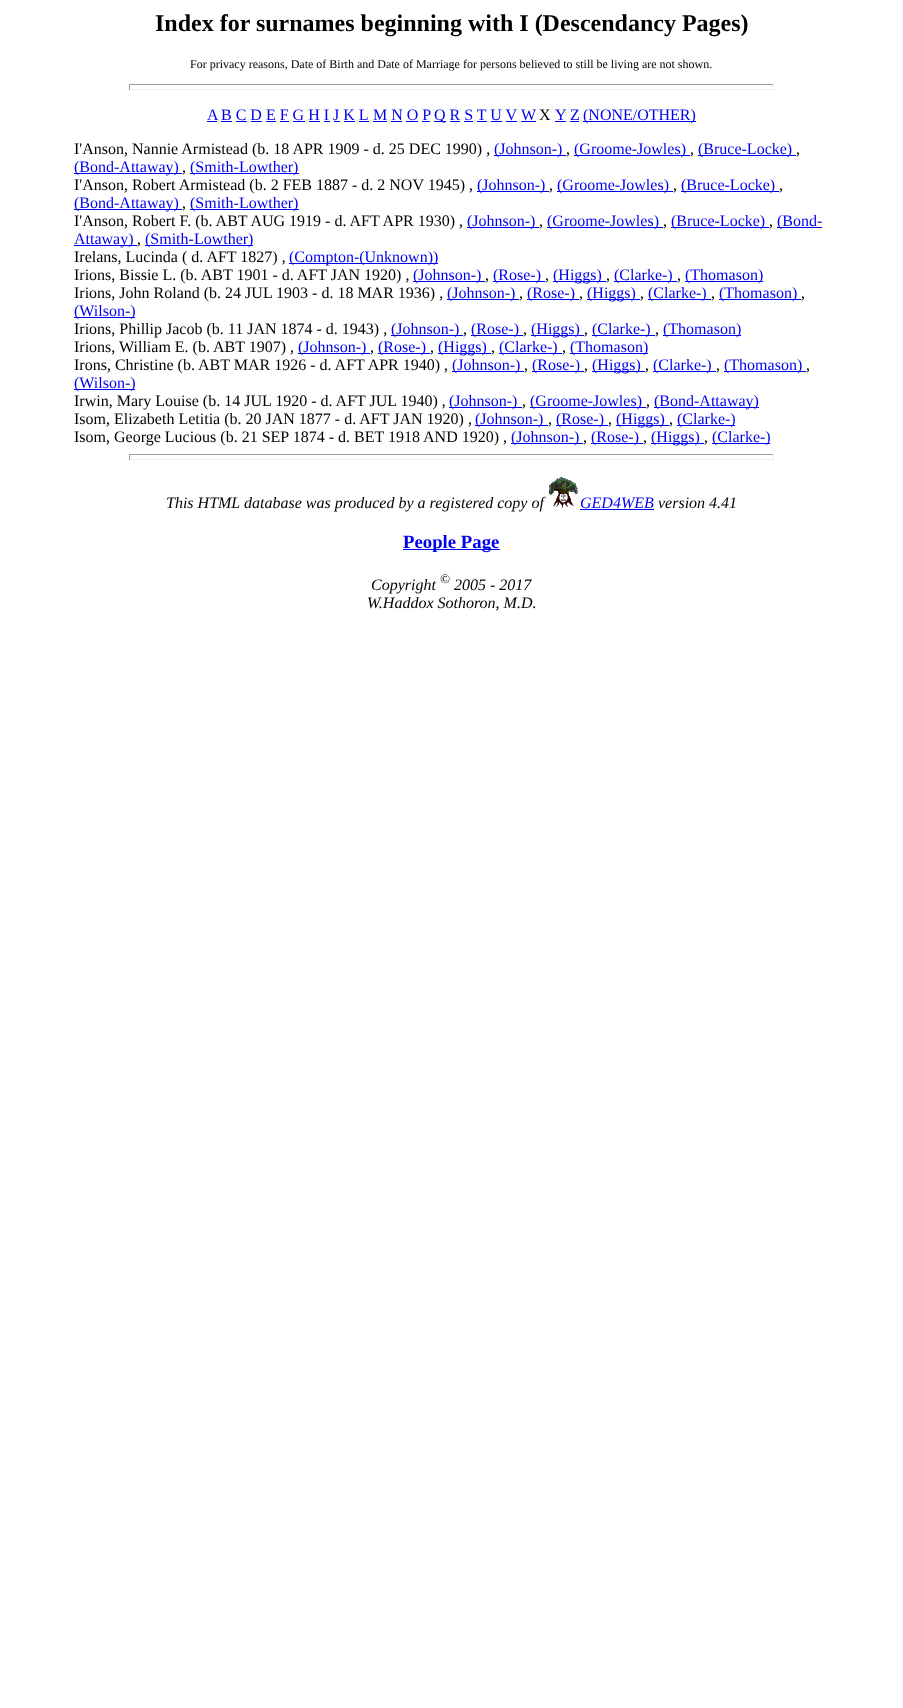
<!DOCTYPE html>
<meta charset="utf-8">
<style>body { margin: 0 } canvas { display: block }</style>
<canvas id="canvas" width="903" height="1708"></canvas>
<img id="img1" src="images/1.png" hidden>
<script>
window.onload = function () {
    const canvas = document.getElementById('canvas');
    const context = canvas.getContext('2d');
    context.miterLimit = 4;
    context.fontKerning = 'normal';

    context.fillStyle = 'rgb(255, 255, 255)';
    context.fillRect(0, 0, 903, 1708);
    context.fillStyle = 'rgb(159, 159, 159)';
    context.fillRect(129, 84, 645, 1);
    context.fillStyle = 'rgb(238, 238, 238)';
    context.fillRect(773, 84, 1, 6);
    context.fillRect(129, 89, 645, 1);
    context.fillStyle = 'rgb(159, 159, 159)';
    context.fillRect(129, 84, 1, 6);
    context.fillStyle = 'rgb(0, 0, 238)';
    context.fillRect(207, 121, 10, 1);
    context.fillRect(221, 121, 11, 1);
    context.fillRect(373, 121, 14, 1);
    context.fillRect(434, 121, 12, 1);
    context.fillRect(521, 121, 15, 1);
    context.fillRect(555, 121, 11, 1);
    context.fillRect(570, 121, 9, 1);
    context.fillRect(583, 121, 113, 1);
    context.fillRect(236, 121, 11, 1);
    context.fillRect(251, 121, 11, 1);
    context.fillRect(266, 121, 10, 1);
    context.fillRect(280, 121, 9, 1);
    context.fillRect(293, 121, 12, 1);
    context.fillRect(309, 121, 11, 1);
    context.fillRect(324, 121, 6, 1);
    context.fillRect(334, 121, 6, 1);
    context.fillRect(344, 121, 11, 1);
    context.fillRect(359, 121, 10, 1);
    context.fillRect(391, 121, 11, 1);
    context.fillRect(406, 121, 12, 1);
    context.fillRect(422, 121, 8, 1);
    context.fillRect(450, 121, 10, 1);
    context.fillRect(464, 121, 9, 1);
    context.fillRect(477, 121, 10, 1);
    context.fillRect(491, 121, 11, 1);
    context.fillRect(506, 121, 11, 1);
    context.fillRect(494, 155, 72, 1);
    context.fillRect(574, 155, 116, 1);
    context.fillRect(698, 155, 98, 1);
    context.fillRect(74, 173, 108, 1);
    context.fillRect(190, 173, 109, 1);
    context.fillRect(477, 191, 72, 1);
    context.fillRect(557, 191, 116, 1);
    context.fillRect(681, 191, 98, 1);
    context.fillRect(74, 209, 108, 1);
    context.fillRect(190, 209, 109, 1);
    context.fillRect(467, 227, 72, 1);
    context.fillRect(547, 227, 116, 1);
    context.fillRect(671, 227, 98, 1);
    context.fillRect(777, 227, 45, 1);
    context.fillRect(74, 245, 63, 1);
    context.fillRect(145, 245, 108, 1);
    context.fillRect(289, 263, 149, 1);
    context.fillRect(413, 281, 72, 1);
    context.fillRect(493, 281, 52, 1);
    context.fillRect(553, 281, 53, 1);
    context.fillRect(614, 281, 63, 1);
    context.fillRect(685, 281, 78, 1);
    context.fillRect(447, 299, 72, 1);
    context.fillRect(527, 299, 52, 1);
    context.fillRect(587, 299, 53, 1);
    context.fillRect(648, 299, 63, 1);
    context.fillRect(719, 299, 82, 1);
    context.fillRect(74, 317, 61, 1);
    context.fillRect(391, 335, 72, 1);
    context.fillRect(471, 335, 52, 1);
    context.fillRect(531, 335, 53, 1);
    context.fillRect(592, 335, 63, 1);
    context.fillRect(663, 335, 78, 1);
    context.fillRect(298, 353, 72, 1);
    context.fillRect(378, 353, 52, 1);
    context.fillRect(438, 353, 53, 1);
    context.fillRect(499, 353, 63, 1);
    context.fillRect(570, 353, 78, 1);
    context.fillRect(452, 371, 72, 1);
    context.fillRect(532, 371, 52, 1);
    context.fillRect(592, 371, 53, 1);
    context.fillRect(653, 371, 63, 1);
    context.fillRect(724, 371, 82, 1);
    context.fillRect(74, 389, 61, 1);
    context.fillRect(449, 407, 73, 1);
    context.fillRect(530, 407, 116, 1);
    context.fillRect(654, 407, 105, 1);
    context.fillRect(475, 425, 73, 1);
    context.fillRect(556, 425, 52, 1);
    context.fillRect(616, 425, 53, 1);
    context.fillRect(677, 425, 58, 1);
    context.fillRect(511, 443, 72, 1);
    context.fillRect(591, 443, 52, 1);
    context.fillRect(651, 443, 53, 1);
    context.fillRect(712, 443, 58, 1);
    context.fillStyle = 'rgb(159, 159, 159)';
    context.fillRect(129, 454, 645, 1);
    context.fillStyle = 'rgb(238, 238, 238)';
    context.fillRect(773, 454, 1, 6);
    context.fillRect(129, 459, 645, 1);
    context.fillStyle = 'rgb(159, 159, 159)';
    context.fillRect(129, 454, 1, 6);
    context.drawImage(document.getElementById('img1'), 549, 477, 29, 31);
    context.fillStyle = 'rgb(0, 0, 238)';
    context.fillRect(580, 509, 74, 1);
    context.fillRect(403, 549, 97, 1);
    context.font = 'bold 24px Liberation Serif';
    context.fillStyle = 'rgb(0, 0, 0)';
    context.fillText('Index for surnames beginning with I (Descendancy Pages)', 155, 31);
    context.font = '12px Liberation Serif';
    context.fillText('For privacy reasons, Date of Birth and Date of Marriage for persons believed to still be living are not shown.', 190, 68);
    context.font = '16px Liberation Serif';
    context.fillStyle = 'rgb(0, 0, 238)';
    context.fillText('A', 207, 120);
    context.fillText('B C D E F G H I J K L', 221, 120);
    context.fillText('M N O P', 373, 120);
    context.fillText('Q R S T U V', 434, 120);
    context.fillText('W', 521, 120);
    context.fillStyle = 'rgb(0, 0, 0)';
    context.fillText('X', 539, 120);
    context.fillStyle = 'rgb(0, 0, 238)';
    context.fillText('Y', 555, 120);
    context.fillText('Z', 570, 120);
    context.fillText('(NONE/OTHER)', 583, 120);
    context.fillStyle = 'rgb(0, 0, 0)';
    context.fillText('I\'Anson, Nannie Armistead (b. 18 APR 1909 - d. 25 DEC 1990) ,', 74, 154);
    context.fillStyle = 'rgb(0, 0, 238)';
    context.fillText('(Johnson-)', 494, 154);
    context.fillStyle = 'rgb(0, 0, 0)';
    context.fillText(',', 566, 154);
    context.fillStyle = 'rgb(0, 0, 238)';
    context.fillText('(Groome-Jowles)', 574, 154);
    context.fillStyle = 'rgb(0, 0, 0)';
    context.fillText(',', 690, 154);
    context.fillStyle = 'rgb(0, 0, 238)';
    context.fillText('(Bruce-Locke)', 698, 154);
    context.fillStyle = 'rgb(0, 0, 0)';
    context.fillText(',', 796, 154);
    context.fillStyle = 'rgb(0, 0, 238)';
    context.fillText('(Bond-Attaway)', 74, 172);
    context.fillStyle = 'rgb(0, 0, 0)';
    context.fillText(',', 182, 172);
    context.fillStyle = 'rgb(0, 0, 238)';
    context.fillText('(Smith-Lowther)', 190, 172);
    context.fillStyle = 'rgb(0, 0, 0)';
    context.fillText('I\'Anson, Robert Armistead (b. 2 FEB 1887 - d. 2 NOV 1945) ,', 74, 190);
    context.fillStyle = 'rgb(0, 0, 238)';
    context.fillText('(Johnson-)', 477, 190);
    context.fillStyle = 'rgb(0, 0, 0)';
    context.fillText(',', 549, 190);
    context.fillStyle = 'rgb(0, 0, 238)';
    context.fillText('(Groome-Jowles)', 557, 190);
    context.fillStyle = 'rgb(0, 0, 0)';
    context.fillText(',', 673, 190);
    context.fillStyle = 'rgb(0, 0, 238)';
    context.fillText('(Bruce-Locke)', 681, 190);
    context.fillStyle = 'rgb(0, 0, 0)';
    context.fillText(',', 779, 190);
    context.fillStyle = 'rgb(0, 0, 238)';
    context.fillText('(Bond-Attaway)', 74, 208);
    context.fillStyle = 'rgb(0, 0, 0)';
    context.fillText(',', 182, 208);
    context.fillStyle = 'rgb(0, 0, 238)';
    context.fillText('(Smith-Lowther)', 190, 208);
    context.fillStyle = 'rgb(0, 0, 0)';
    context.fillText('I\'Anson, Robert F. (b. ABT AUG 1919 - d. AFT APR 1930) ,', 74, 226);
    context.fillStyle = 'rgb(0, 0, 238)';
    context.fillText('(Johnson-)', 467, 226);
    context.fillStyle = 'rgb(0, 0, 0)';
    context.fillText(',', 539, 226);
    context.fillStyle = 'rgb(0, 0, 238)';
    context.fillText('(Groome-Jowles)', 547, 226);
    context.fillStyle = 'rgb(0, 0, 0)';
    context.fillText(',', 663, 226);
    context.fillStyle = 'rgb(0, 0, 238)';
    context.fillText('(Bruce-Locke)', 671, 226);
    context.fillStyle = 'rgb(0, 0, 0)';
    context.fillText(',', 769, 226);
    context.fillStyle = 'rgb(0, 0, 238)';
    context.fillText('(Bond-', 777, 226);
    context.fillText('Attaway)', 74, 244);
    context.fillStyle = 'rgb(0, 0, 0)';
    context.fillText(',', 137, 244);
    context.fillStyle = 'rgb(0, 0, 238)';
    context.fillText('(Smith-Lowther)', 145, 244);
    context.fillStyle = 'rgb(0, 0, 0)';
    context.fillText('Irelans, Lucinda ( d. AFT 1827) ,', 74, 262);
    context.fillStyle = 'rgb(0, 0, 238)';
    context.fillText('(Compton-(Unknown))', 289, 262);
    context.fillStyle = 'rgb(0, 0, 0)';
    context.fillText('Irions, Bissie L. (b. ABT 1901 - d. AFT JAN 1920) ,', 74, 280);
    context.fillStyle = 'rgb(0, 0, 238)';
    context.fillText('(Johnson-)', 413, 280);
    context.fillStyle = 'rgb(0, 0, 0)';
    context.fillText(',', 485, 280);
    context.fillStyle = 'rgb(0, 0, 238)';
    context.fillText('(Rose-)', 493, 280);
    context.fillStyle = 'rgb(0, 0, 0)';
    context.fillText(',', 545, 280);
    context.fillStyle = 'rgb(0, 0, 238)';
    context.fillText('(Higgs)', 553, 280);
    context.fillStyle = 'rgb(0, 0, 0)';
    context.fillText(',', 606, 280);
    context.fillStyle = 'rgb(0, 0, 238)';
    context.fillText('(Clarke-)', 614, 280);
    context.fillStyle = 'rgb(0, 0, 0)';
    context.fillText(',', 677, 280);
    context.fillStyle = 'rgb(0, 0, 238)';
    context.fillText('(Thomason)', 685, 280);
    context.fillStyle = 'rgb(0, 0, 0)';
    context.fillText('Irions, John Roland (b. 24 JUL 1903 - d. 18 MAR 1936) ,', 74, 298);
    context.fillStyle = 'rgb(0, 0, 238)';
    context.fillText('(Johnson-)', 447, 298);
    context.fillStyle = 'rgb(0, 0, 0)';
    context.fillText(',', 519, 298);
    context.fillStyle = 'rgb(0, 0, 238)';
    context.fillText('(Rose-)', 527, 298);
    context.fillStyle = 'rgb(0, 0, 0)';
    context.fillText(',', 579, 298);
    context.fillStyle = 'rgb(0, 0, 238)';
    context.fillText('(Higgs)', 587, 298);
    context.fillStyle = 'rgb(0, 0, 0)';
    context.fillText(',', 640, 298);
    context.fillStyle = 'rgb(0, 0, 238)';
    context.fillText('(Clarke-)', 648, 298);
    context.fillStyle = 'rgb(0, 0, 0)';
    context.fillText(',', 711, 298);
    context.fillStyle = 'rgb(0, 0, 238)';
    context.fillText('(Thomason)', 719, 298);
    context.fillStyle = 'rgb(0, 0, 0)';
    context.fillText(',', 801, 298);
    context.fillStyle = 'rgb(0, 0, 238)';
    context.fillText('(Wilson-)', 74, 316);
    context.fillStyle = 'rgb(0, 0, 0)';
    context.fillText('Irions, Phillip Jacob (b. 11 JAN 1874 - d. 1943) ,', 74, 334);
    context.fillStyle = 'rgb(0, 0, 238)';
    context.fillText('(Johnson-)', 391, 334);
    context.fillStyle = 'rgb(0, 0, 0)';
    context.fillText(',', 463, 334);
    context.fillStyle = 'rgb(0, 0, 238)';
    context.fillText('(Rose-)', 471, 334);
    context.fillStyle = 'rgb(0, 0, 0)';
    context.fillText(',', 523, 334);
    context.fillStyle = 'rgb(0, 0, 238)';
    context.fillText('(Higgs)', 531, 334);
    context.fillStyle = 'rgb(0, 0, 0)';
    context.fillText(',', 584, 334);
    context.fillStyle = 'rgb(0, 0, 238)';
    context.fillText('(Clarke-)', 592, 334);
    context.fillStyle = 'rgb(0, 0, 0)';
    context.fillText(',', 655, 334);
    context.fillStyle = 'rgb(0, 0, 238)';
    context.fillText('(Thomason)', 663, 334);
    context.fillStyle = 'rgb(0, 0, 0)';
    context.fillText('Irions, William E. (b. ABT 1907) ,', 74, 352);
    context.fillStyle = 'rgb(0, 0, 238)';
    context.fillText('(Johnson-)', 298, 352);
    context.fillStyle = 'rgb(0, 0, 0)';
    context.fillText(',', 370, 352);
    context.fillStyle = 'rgb(0, 0, 238)';
    context.fillText('(Rose-)', 378, 352);
    context.fillStyle = 'rgb(0, 0, 0)';
    context.fillText(',', 430, 352);
    context.fillStyle = 'rgb(0, 0, 238)';
    context.fillText('(Higgs)', 438, 352);
    context.fillStyle = 'rgb(0, 0, 0)';
    context.fillText(',', 491, 352);
    context.fillStyle = 'rgb(0, 0, 238)';
    context.fillText('(Clarke-)', 499, 352);
    context.fillStyle = 'rgb(0, 0, 0)';
    context.fillText(',', 562, 352);
    context.fillStyle = 'rgb(0, 0, 238)';
    context.fillText('(Thomason)', 570, 352);
    context.fillStyle = 'rgb(0, 0, 0)';
    context.fillText('Irons, Christine (b. ABT MAR 1926 - d. AFT APR 1940) ,', 74, 370);
    context.fillStyle = 'rgb(0, 0, 238)';
    context.fillText('(Johnson-)', 452, 370);
    context.fillStyle = 'rgb(0, 0, 0)';
    context.fillText(',', 524, 370);
    context.fillStyle = 'rgb(0, 0, 238)';
    context.fillText('(Rose-)', 532, 370);
    context.fillStyle = 'rgb(0, 0, 0)';
    context.fillText(',', 584, 370);
    context.fillStyle = 'rgb(0, 0, 238)';
    context.fillText('(Higgs)', 592, 370);
    context.fillStyle = 'rgb(0, 0, 0)';
    context.fillText(',', 645, 370);
    context.fillStyle = 'rgb(0, 0, 238)';
    context.fillText('(Clarke-)', 653, 370);
    context.fillStyle = 'rgb(0, 0, 0)';
    context.fillText(',', 716, 370);
    context.fillStyle = 'rgb(0, 0, 238)';
    context.fillText('(Thomason)', 724, 370);
    context.fillStyle = 'rgb(0, 0, 0)';
    context.fillText(',', 806, 370);
    context.fillStyle = 'rgb(0, 0, 238)';
    context.fillText('(Wilson-)', 74, 388);
    context.fillStyle = 'rgb(0, 0, 0)';
    context.fillText('Irwin, Mary Louise (b. 14 JUL 1920 - d. AFT JUL 1940) ,', 74, 406);
    context.fillStyle = 'rgb(0, 0, 238)';
    context.fillText('(Johnson-)', 449, 406);
    context.fillStyle = 'rgb(0, 0, 0)';
    context.fillText(',', 522, 406);
    context.fillStyle = 'rgb(0, 0, 238)';
    context.fillText('(Groome-Jowles)', 530, 406);
    context.fillStyle = 'rgb(0, 0, 0)';
    context.fillText(',', 646, 406);
    context.fillStyle = 'rgb(0, 0, 238)';
    context.fillText('(Bond-Attaway)', 654, 406);
    context.fillStyle = 'rgb(0, 0, 0)';
    context.fillText('Isom, Elizabeth Letitia (b. 20 JAN 1877 - d. AFT JAN 1920) ,', 74, 424);
    context.fillStyle = 'rgb(0, 0, 238)';
    context.fillText('(Johnson-)', 475, 424);
    context.fillStyle = 'rgb(0, 0, 0)';
    context.fillText(',', 548, 424);
    context.fillStyle = 'rgb(0, 0, 238)';
    context.fillText('(Rose-)', 556, 424);
    context.fillStyle = 'rgb(0, 0, 0)';
    context.fillText(',', 608, 424);
    context.fillStyle = 'rgb(0, 0, 238)';
    context.fillText('(Higgs)', 616, 424);
    context.fillStyle = 'rgb(0, 0, 0)';
    context.fillText(',', 669, 424);
    context.fillStyle = 'rgb(0, 0, 238)';
    context.fillText('(Clarke-)', 677, 424);
    context.fillStyle = 'rgb(0, 0, 0)';
    context.fillText('Isom, George Lucious (b. 21 SEP 1874 - d. BET 1918 AND 1920) ,', 74, 442);
    context.fillStyle = 'rgb(0, 0, 238)';
    context.fillText('(Johnson-)', 511, 442);
    context.fillStyle = 'rgb(0, 0, 0)';
    context.fillText(',', 583, 442);
    context.fillStyle = 'rgb(0, 0, 238)';
    context.fillText('(Rose-)', 591, 442);
    context.fillStyle = 'rgb(0, 0, 0)';
    context.fillText(',', 643, 442);
    context.fillStyle = 'rgb(0, 0, 238)';
    context.fillText('(Higgs)', 651, 442);
    context.fillStyle = 'rgb(0, 0, 0)';
    context.fillText(',', 704, 442);
    context.fillStyle = 'rgb(0, 0, 238)';
    context.fillText('(Clarke-)', 712, 442);
    context.font = 'italic 16px Liberation Serif';
    context.fillStyle = 'rgb(0, 0, 0)';
    context.fillText('This HTML database was produced by a registered copy of', 166, 508);
    context.fillStyle = 'rgb(0, 0, 238)';
    context.fillText('GED4WEB', 580, 508);
    context.fillStyle = 'rgb(0, 0, 0)';
    context.fillText('version 4.41', 658, 508);
    context.font = 'bold 18.75px Liberation Serif';
    context.fillStyle = 'rgb(0, 0, 238)';
    context.fillText('People Page', 403, 548);
    context.font = 'italic 16px Liberation Serif';
    context.fillStyle = 'rgb(0, 0, 0)';
    context.fillText('Copyright', 371, 590);
    context.font = 'italic 13px Liberation Serif';
    context.fillText('©', 440, 583);
    context.font = 'italic 16px Liberation Serif';
    context.fillText('2005 - 2017', 454, 590);
    context.fillText('W.Haddox Sothoron, M.D.', 367, 608);
};
</script>
